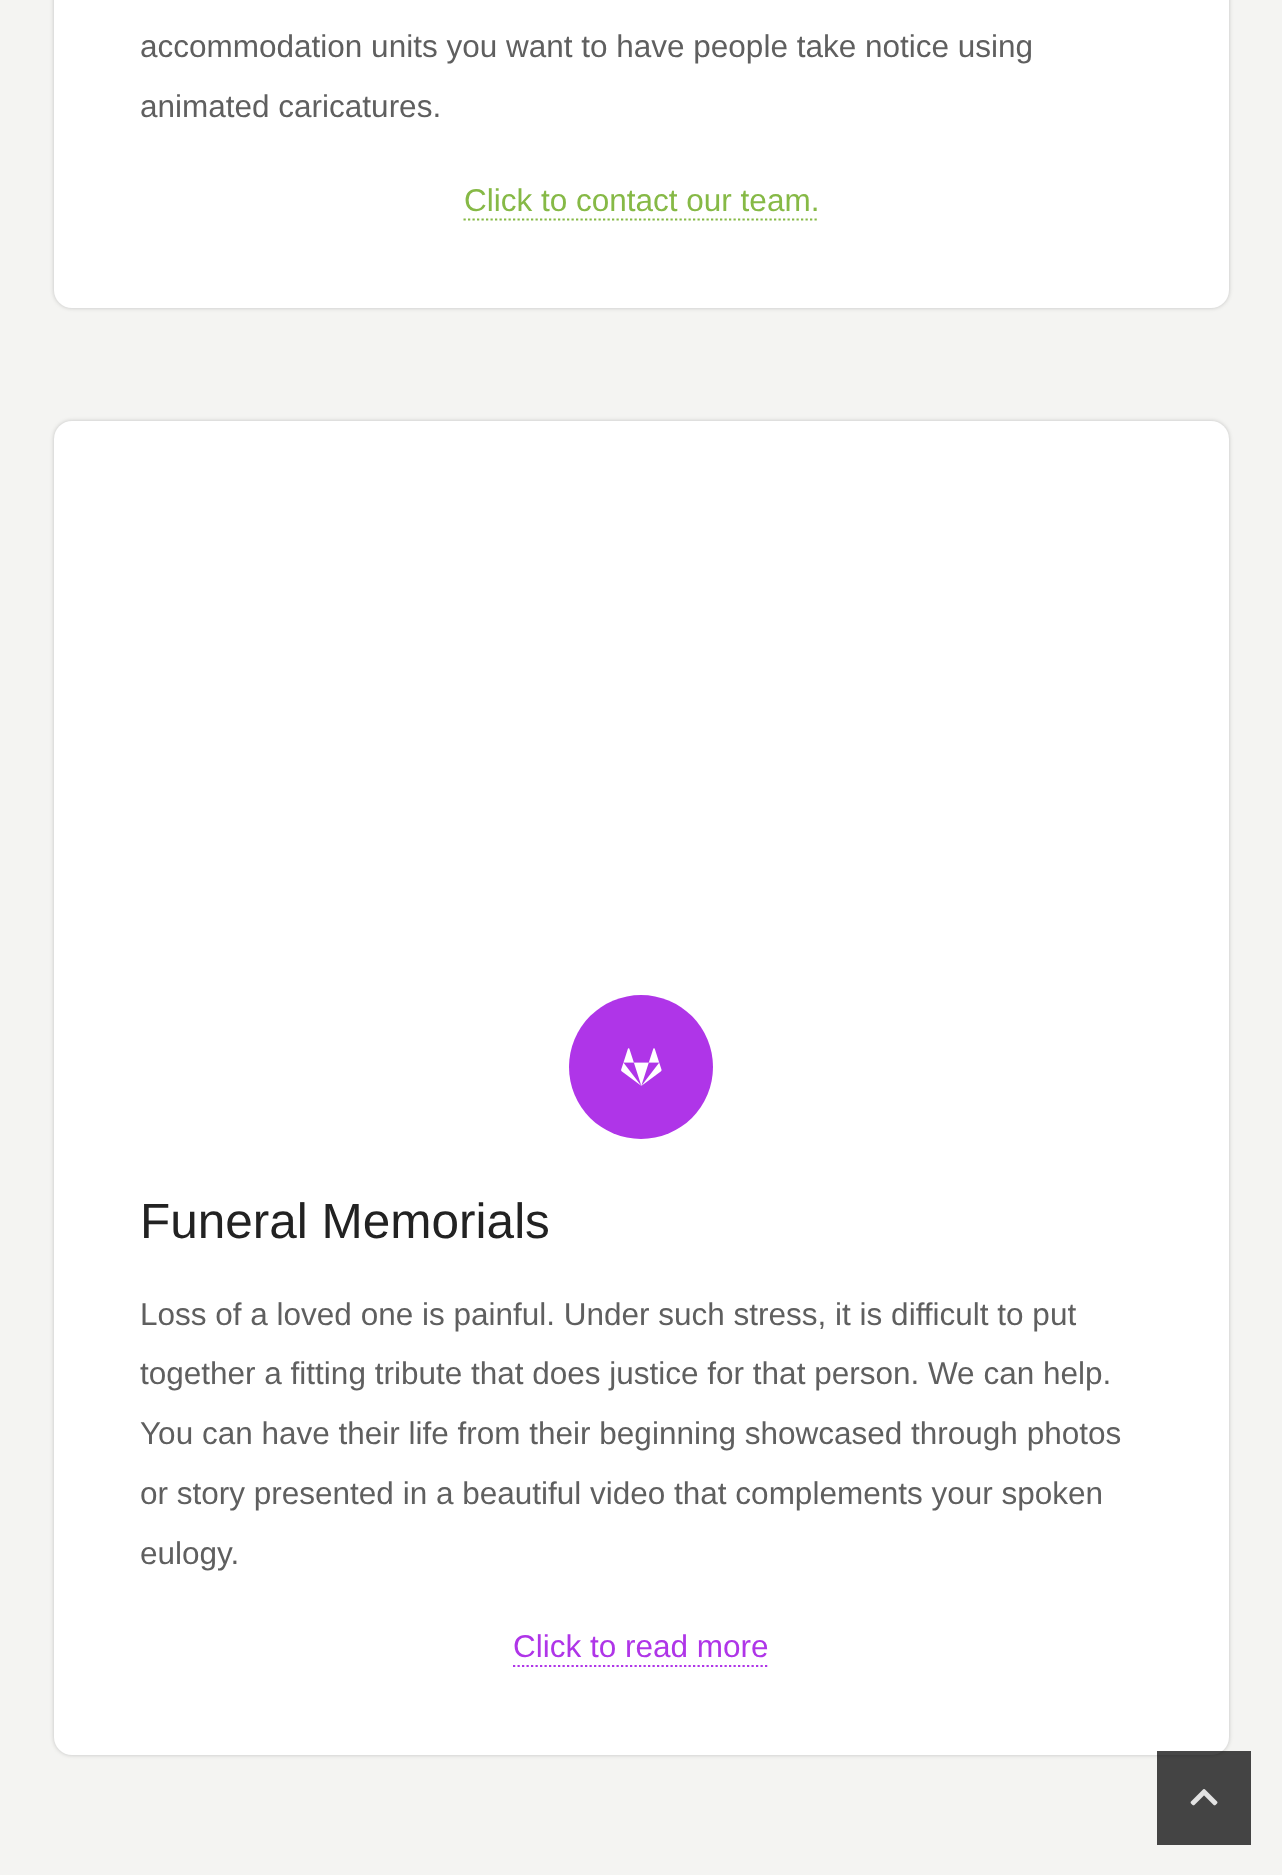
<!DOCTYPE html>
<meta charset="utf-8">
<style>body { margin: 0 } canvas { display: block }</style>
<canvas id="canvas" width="1282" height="1875"></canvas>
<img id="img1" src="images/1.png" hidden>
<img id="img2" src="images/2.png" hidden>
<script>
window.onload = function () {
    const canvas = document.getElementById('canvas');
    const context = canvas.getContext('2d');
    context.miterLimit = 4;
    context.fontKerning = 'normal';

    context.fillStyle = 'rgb(244, 244, 242)';
    context.fillRect(0, 0, 1282, 1875);
    context.fillStyle = 'rgba(0, 0, 0, 0.2)';
    context.filter = 'blur(2px)';
    context.beginPath();
    context.roundRect(54, -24, 1175, 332, 18);
    context.fill();
    context.filter = 'none';
    context.fillStyle = 'rgb(255, 255, 255)';
    context.beginPath();
    context.roundRect(54, -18, 1175, 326, 18);
    context.fill();
    context.beginPath();
    context.moveTo(463.5, 219.5);
    context.lineTo(819, 219.5);
    context.strokeStyle = 'rgb(134, 185, 70)';
    context.lineWidth = 2.2;
    context.setLineDash([2.25, 2.25]);
    context.stroke();
    context.fillStyle = 'rgba(0, 0, 0, 0.2)';
    context.filter = 'blur(2px)';
    context.beginPath();
    context.roundRect(54, 421, 1175, 1334, 18);
    context.fill();
    context.filter = 'none';
    context.fillStyle = 'rgb(255, 255, 255)';
    context.beginPath();
    context.roundRect(54, 421, 1175, 1334, 18);
    context.fill();
    context.fillStyle = 'rgb(175, 53, 232)';
    context.beginPath();
    context.arc(641, 1067, 72, 0, 2 * Math.PI);
    context.fill();
    context.drawImage(document.getElementById('img1'), 621, 1048, 41, 38);
    context.beginPath();
    context.moveTo(513, 1666);
    context.lineTo(769.5, 1666);
    context.strokeStyle = 'rgb(175, 53, 232)';
    context.stroke();
    context.fillStyle = 'rgba(0, 0, 0, 0.72)';
    context.fillRect(1157, 1751, 94, 94);
    context.drawImage(document.getElementById('img2'), 1190, 1789, 28, 17);
    context.font = '31.5px Liberation Sans';
    context.fillStyle = 'rgb(95, 95, 95)';
    context.fillText('accommodation units you want to have people take notice using', 140, 57);
    context.fillText('animated caricatures.', 140, 117);
    context.fillStyle = 'rgb(134, 185, 70)';
    context.fillText('Click to contact our team.', 464, 211);
    context.font = '49.5px Liberation Sans';
    context.fillStyle = 'rgb(34, 34, 34)';
    context.fillText('Funeral Memorials', 140, 1238);
    context.font = '31.5px Liberation Sans';
    context.fillStyle = 'rgb(95, 95, 95)';
    context.fillText('Loss of a loved one is painful. Under such stress, it is difficult to put', 140, 1325);
    context.fillText('together a fitting tribute that does justice for that person. We can help.', 140, 1384);
    context.fillText('You can have their life from their beginning showcased through photos', 140, 1444);
    context.fillText('or story presented in a beautiful video that complements your spoken', 140, 1504);
    context.fillText('eulogy.', 140, 1564);
    context.fillStyle = 'rgb(175, 53, 232)';
    context.fillText('Click to read more', 513, 1657);
};
</script>
